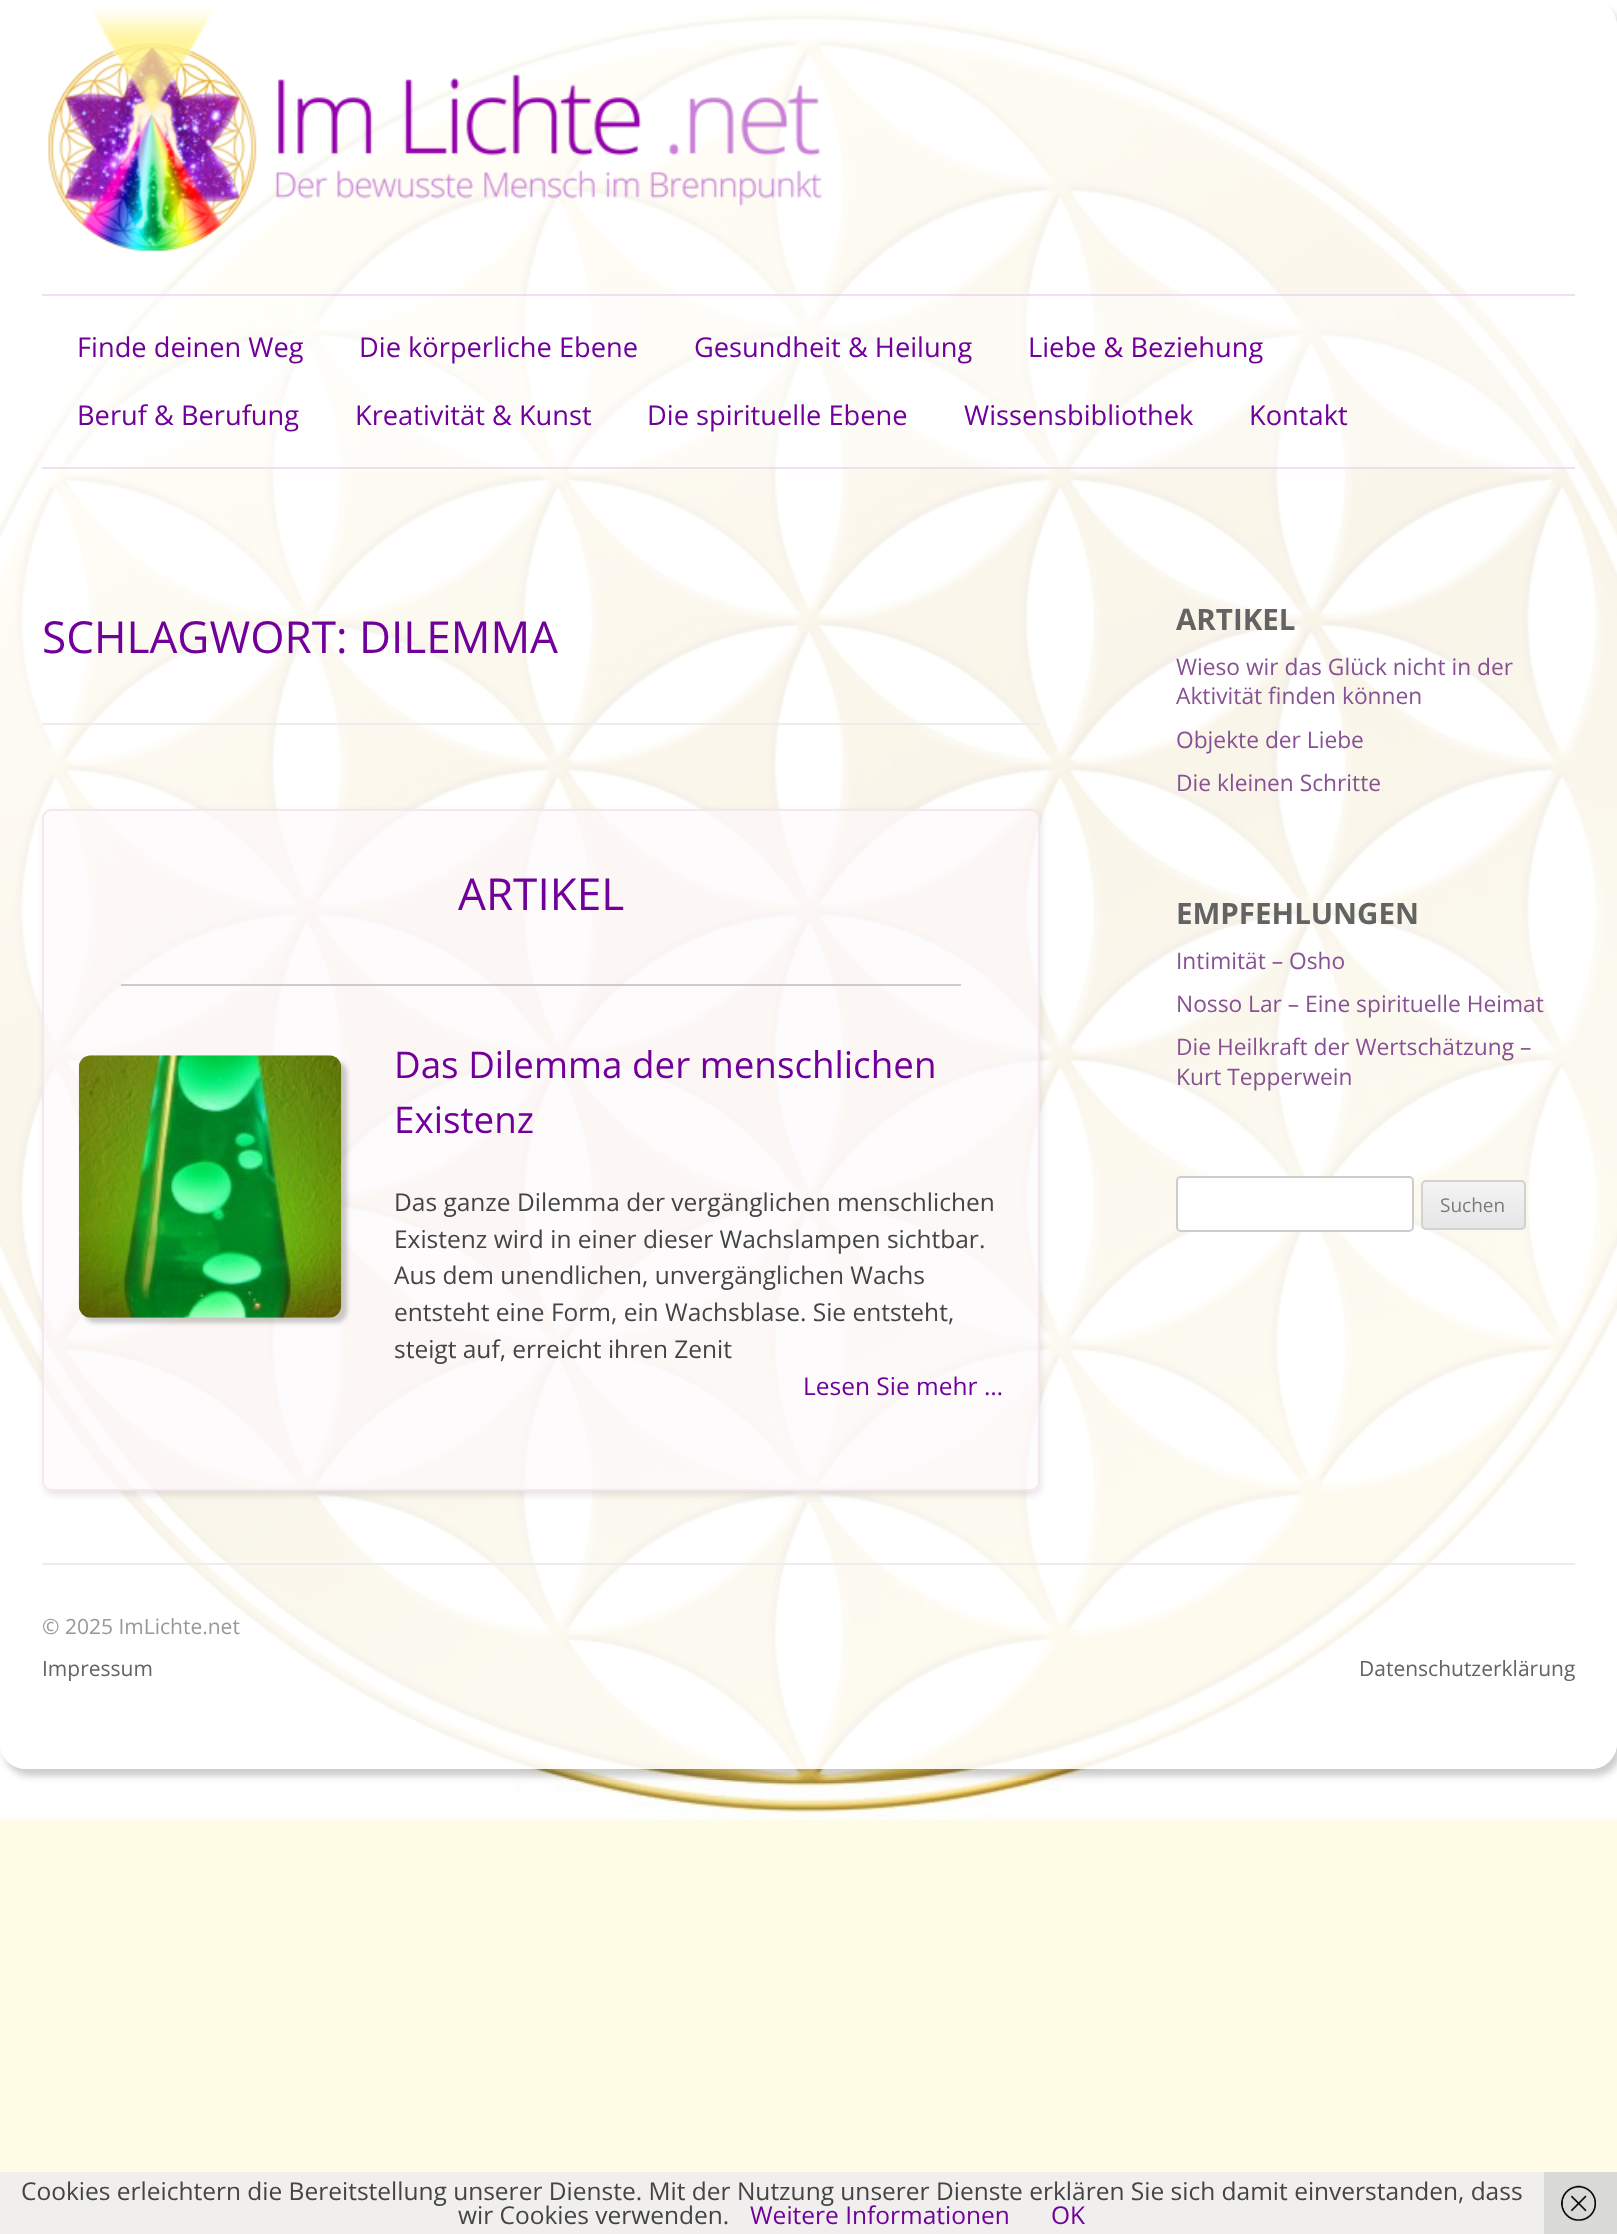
<!DOCTYPE html>
<meta charset="utf-8">
<style>body { margin: 0 } canvas { display: block }</style>
<canvas id="canvas" width="1617" height="2234"></canvas>
<img id="img1" src="images/1.png" hidden>
<img id="img2" src="images/2.png" hidden>
<img id="img3" src="images/3.png" hidden>
<img id="img4" src="images/4.png" hidden>
<script>
window.onload = function () {
    const canvas = document.getElementById('canvas');
    const context = canvas.getContext('2d');
    context.miterLimit = 4;
    context.fontKerning = 'normal';
    let gradient;

    context.fillStyle = 'rgb(255, 252, 229)';
    context.fillRect(0, 0, 1617, 2234);
    context.drawImage(document.getElementById('img1'), 0, 0, 1617, 1821);
    context.save();
    context.beginPath();
    context.moveTo(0, 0);
    context.lineTo(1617, 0);
    context.lineTo(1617, 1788);
    context.lineTo(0, 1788);
    context.closePath();
    context.moveTo(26, 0);
    context.lineTo(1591, 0);
    context.bezierCurveTo(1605.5, 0, 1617, 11.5, 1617, 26);
    context.lineTo(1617, 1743);
    context.bezierCurveTo(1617, 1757.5, 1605.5, 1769, 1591, 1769);
    context.lineTo(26, 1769);
    context.bezierCurveTo(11.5, 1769, 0, 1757.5, 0, 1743);
    context.lineTo(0, 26);
    context.bezierCurveTo(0, 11.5, 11.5, 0, 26, 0);
    context.closePath();
    context.clip('evenodd');
    context.fillStyle = 'rgba(0, 0, 0, 0.2)';
    context.filter = 'blur(3.5px)';
    context.beginPath();
    context.roundRect(4, 7, 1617, 1769, 26);
    context.fill();
    context.filter = 'none';
    context.restore();
    context.fillStyle = 'rgba(255, 255, 255, 0.9)';
    context.beginPath();
    context.roundRect(0, 0, 1617, 1769, 26);
    context.fill();
    context.drawImage(document.getElementById('img2'), 48, 7, 774, 245);
    context.fillStyle = 'rgba(255, 255, 255, 0.4)';
    context.fillRect(42, 294, 1533, 175);
    context.fillStyle = 'rgba(228, 191, 234, 0.5)';
    context.fillRect(42, 294, 1533, 2);
    context.fillRect(42, 467, 1533, 2);
    context.fillStyle = 'rgb(237, 237, 237)';
    context.fillRect(42, 723, 998, 2);
    context.save();
    context.beginPath();
    context.moveTo(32, 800);
    context.lineTo(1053, 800);
    context.lineTo(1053, 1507);
    context.lineTo(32, 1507);
    context.closePath();
    context.moveTo(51, 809);
    context.lineTo(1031, 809);
    context.bezierCurveTo(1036, 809, 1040, 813, 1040, 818);
    context.lineTo(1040, 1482);
    context.bezierCurveTo(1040, 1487, 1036, 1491, 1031, 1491);
    context.lineTo(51, 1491);
    context.bezierCurveTo(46, 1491, 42, 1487, 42, 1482);
    context.lineTo(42, 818);
    context.bezierCurveTo(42, 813, 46, 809, 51, 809);
    context.closePath();
    context.clip('evenodd');
    context.fillStyle = 'rgba(0, 0, 0, 0.1)';
    context.filter = 'blur(3.5px)';
    context.beginPath();
    context.roundRect(44, 812, 997, 683, 9);
    context.fill();
    context.filter = 'none';
    context.restore();
    context.fillStyle = 'rgba(254, 248, 251, 0.6)';
    context.beginPath();
    context.roundRect(43, 810, 996, 680, 8);
    context.fill();
    context.strokeStyle = 'rgb(244, 231, 237)';
    context.lineWidth = 2;
    context.stroke();
    context.fillStyle = 'rgb(204, 204, 204)';
    context.fillRect(121, 984, 840, 2);
    context.fillStyle = 'rgba(0, 0, 0, 0.2)';
    context.filter = 'blur(2px)';
    context.beginPath();
    context.roundRect(84, 1061, 263, 262, 12);
    context.fill();
    context.filter = 'none';
    context.drawImage(document.getElementById('img3'), 78, 1055, 264, 263);
    context.fillStyle = 'rgb(255, 255, 255)';
    context.beginPath();
    context.roundRect(1177, 1177, 236, 54, 4);
    context.fill();
    context.strokeStyle = 'rgb(204, 204, 204)';
    context.stroke();
    context.save();
    context.beginPath();
    context.roundRect(1421, 1180, 105, 50, 5);
    context.clip();
    gradient = context.createLinearGradient(1474, 1181, 1474, 1229);
    gradient.addColorStop(0, 'rgb(244, 244, 244)');
    gradient.addColorStop(1, 'rgb(230, 230, 230)');
    context.fillStyle = gradient;
    context.fillRect(1421, 1181, 105, 48);
    context.restore();
    context.beginPath();
    context.roundRect(1422, 1181, 103, 48, 4);
    context.strokeStyle = 'rgb(210, 210, 210)';
    context.stroke();
    context.fillStyle = 'rgb(237, 237, 237)';
    context.fillRect(42, 1563, 1533, 2);
    context.fillStyle = 'rgb(240, 239, 237)';
    context.fillRect(0, 2172, 1544, 62);
    context.fillStyle = 'rgb(218, 218, 217)';
    context.fillRect(1544, 2172, 73, 62);
    context.drawImage(document.getElementById('img4'), 1561, 2185, 35, 36);
    context.font = '27.25px Open Sans';
    context.fillStyle = 'rgb(113, 0, 155)';
    context.fillText('Finde deinen Weg', 77, 357);
    context.fillText('Die körperliche Ebene', 359, 357);
    context.fillText('Gesundheit & Heilung', 694, 357);
    context.fillText('Liebe & Beziehung', 1028, 357);
    context.fillText('Beruf & Berufung', 77, 425);
    context.fillText('Kreativität & Kunst', 355, 425);
    context.fillText('Die spirituelle Ebene', 647, 425);
    context.fillText('Wissensbibliothek', 964, 425);
    context.fillText('Kontakt', 1249, 425);
    context.font = '44.1px Open Sans';
    context.fillText('SCHLAGWORT: DILEMMA', 42, 653);
    context.fillText('ARTIKEL', 458, 910);
    context.font = '36.75px Open Sans';
    context.fillText('Das Dilemma der menschlichen', 394, 1078);
    context.fillText('Existenz', 394, 1133);
    context.font = '24.5px Open Sans';
    context.fillStyle = 'rgb(68, 68, 68)';
    context.fillText('Das ganze Dilemma der vergänglichen menschlichen', 394, 1211);
    context.fillText('Existenz wird in einer dieser Wachslampen sichtbar.', 394, 1248);
    context.fillText('Aus dem unendlichen, unvergänglichen Wachs', 394, 1284);
    context.fillText('entsteht eine Form, ein Wachsblase. Sie entsteht,', 394, 1321);
    context.fillText('steigt auf, erreicht ihren Zenit', 394, 1358);
    context.fillStyle = 'rgb(113, 0, 155)';
    context.fillText('Lesen Sie mehr …', 803, 1395);
    context.font = 'bold 29.5px Open Sans';
    context.fillStyle = 'rgb(99, 99, 99)';
    context.fillText('ARTIKEL', 1176, 630);
    context.font = '22.75px Open Sans';
    context.fillStyle = 'rgb(135, 81, 147)';
    context.fillText('Wieso wir das Glück nicht in der', 1176, 675);
    context.fillText('Aktivität finden können', 1176, 704);
    context.fillText('Objekte der Liebe', 1176, 748);
    context.fillText('Die kleinen Schritte', 1176, 791);
    context.font = 'bold 29.5px Open Sans';
    context.fillStyle = 'rgb(99, 99, 99)';
    context.fillText('EMPFEHLUNGEN', 1176, 924);
    context.font = '22.75px Open Sans';
    context.fillStyle = 'rgb(135, 81, 147)';
    context.fillText('Intimität – Osho', 1176, 969);
    context.fillText('Nosso Lar – Eine spirituelle Heimat', 1176, 1012);
    context.fillText('Die Heilkraft der Wertschätzung –', 1176, 1055);
    context.fillText('Kurt Tepperwein', 1176, 1085);
    context.font = '19px Open Sans';
    context.fillStyle = 'rgb(124, 124, 124)';
    context.fillText('Suchen', 1440, 1212);
    context.font = '21px Open Sans';
    context.fillStyle = 'rgb(153, 153, 153)';
    context.fillText('© 2025 ImLichte.net', 42, 1634);
    context.fillStyle = 'rgb(99, 99, 99)';
    context.fillText('Impressum', 42, 1676);
    context.fillText('Datenschutzerklärung', 1359, 1676);
    context.font = '24.5px Open Sans';
    context.fillStyle = 'rgb(68, 68, 68)';
    context.fillText('Cookies erleichtern die Bereitstellung unserer Dienste. Mit der Nutzung unserer Dienste erklären Sie sich damit einverstanden, dass', 21, 2200);
    context.fillText('wir Cookies verwenden.', 458, 2224);
    context.fillStyle = 'rgb(113, 0, 155)';
    context.fillText('Weitere Informationen', 750, 2224);
    context.fillText('OK', 1051, 2224);
};
</script>
